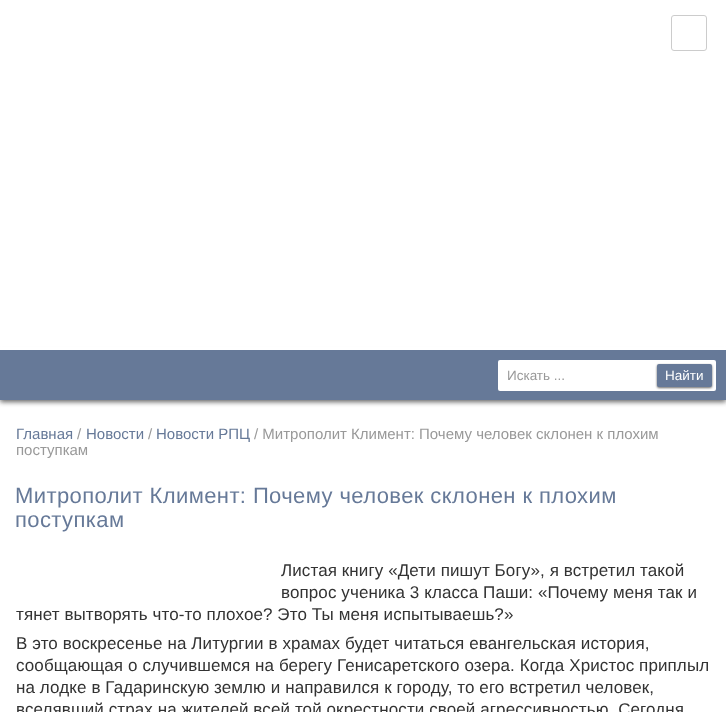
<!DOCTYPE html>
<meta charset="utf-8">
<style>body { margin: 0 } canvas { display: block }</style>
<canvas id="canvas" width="726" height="712"></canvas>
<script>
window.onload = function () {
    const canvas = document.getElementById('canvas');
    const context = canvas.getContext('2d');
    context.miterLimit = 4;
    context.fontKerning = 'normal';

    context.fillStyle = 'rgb(255, 255, 255)';
    context.fillRect(0, 0, 726, 712);
    context.fillStyle = 'rgb(102, 102, 102)';
    context.filter = 'blur(2.5px)';
    context.beginPath();
    context.rect(0, 352, 726, 50);
    context.fill();
    context.filter = 'none';
    context.fillStyle = 'rgb(102, 121, 152)';
    context.fillRect(0, 350, 726, 50);
    context.fillStyle = 'rgb(255, 255, 255)';
    context.fillRect(0, 347, 726, 3);
    context.beginPath();
    context.roundRect(671.5, 15.5, 35, 35, 2.5);
    context.strokeStyle = 'rgb(204, 204, 204)';
    context.stroke();
    context.beginPath();
    context.roundRect(498, 360, 218, 31, 2);
    context.fill();
    context.fillStyle = 'rgba(0, 0, 0, 0.6)';
    context.filter = 'blur(1px)';
    context.beginPath();
    context.roundRect(657, 365, 55, 23, 2);
    context.fill();
    context.filter = 'none';
    context.fillStyle = 'rgb(102, 121, 152)';
    context.beginPath();
    context.roundRect(657, 364, 55, 23, 2);
    context.fill();
    context.font = '13.5px Liberation Sans';
    context.fillStyle = 'rgb(153, 153, 153)';
    context.fillText('Искать ...', 507, 380);
    context.fillStyle = 'rgb(255, 255, 255)';
    context.fillText('Найти', 665, 380);
    context.font = '15px Liberation Sans';
    context.fillStyle = 'rgb(102, 121, 152)';
    context.fillText('Главная', 16, 439);
    context.fillStyle = 'rgb(153, 153, 153)';
    context.fillText('/', 77, 439);
    context.fillStyle = 'rgb(102, 121, 152)';
    context.fillText('Новости', 86, 439);
    context.fillStyle = 'rgb(153, 153, 153)';
    context.fillText('/', 148, 439);
    context.fillStyle = 'rgb(102, 121, 152)';
    context.fillText('Новости РПЦ', 156, 439);
    context.fillStyle = 'rgb(153, 153, 153)';
    context.fillText('/ Митрополит Климент: Почему человек склонен к плохим', 254, 439);
    context.fillText('поступкам', 16, 455);
    context.letterSpacing = '0.4px';
    context.font = '22px Liberation Sans';
    context.fillStyle = 'rgb(102, 121, 152)';
    context.fillText('Митрополит Климент: Почему человек склонен к плохим', 15, 503);
    context.fillText('поступкам', 15, 527);
    context.letterSpacing = '0.1px';
    context.font = '17px Liberation Sans';
    context.fillStyle = 'rgb(51, 51, 51)';
    context.fillText('Листая книгу «Дети пишут Богу», я встретил такой', 281, 576);
    context.fillText('вопрос ученика 3 класса Паши: «Почему меня так и', 281, 598);
    context.fillText('тянет вытворять что-то плохое? Это Ты меня испытываешь?»', 16, 620);
    context.fillText('В это воскресенье на Литургии в храмах будет читаться евангельская история,', 16, 649);
    context.fillText('сообщающая о случившемся на берегу Генисаретского озера. Когда Христос приплыл', 16, 671);
    context.fillText('на лодке в Гадаринскую землю и направился к городу, то его встретил человек,', 16, 693);
    context.fillText('вселявший страх на жителей всей той окрестности своей агрессивностью. Сегодня', 16, 715);
};
</script>
